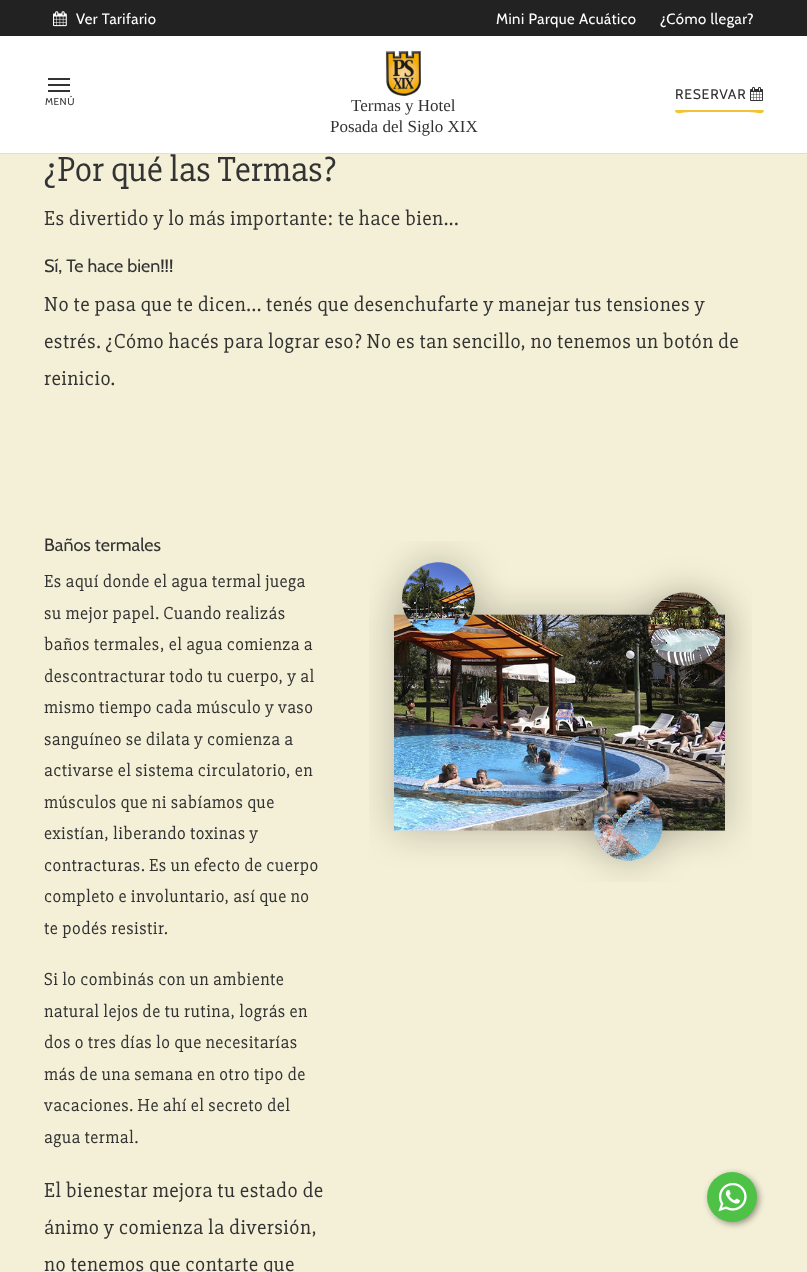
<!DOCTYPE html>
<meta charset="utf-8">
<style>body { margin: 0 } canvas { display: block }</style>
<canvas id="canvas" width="807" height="1272"></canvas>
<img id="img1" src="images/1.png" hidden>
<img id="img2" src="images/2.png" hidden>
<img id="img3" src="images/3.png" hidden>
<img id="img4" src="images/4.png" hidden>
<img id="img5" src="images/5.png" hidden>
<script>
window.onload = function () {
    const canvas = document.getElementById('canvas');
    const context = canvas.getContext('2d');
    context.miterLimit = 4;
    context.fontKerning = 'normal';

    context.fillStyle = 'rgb(244, 240, 215)';
    context.fillRect(0, 0, 807, 1272);
    context.fillStyle = 'rgb(34, 34, 34)';
    context.fillRect(0, 0, 807, 36);
    context.drawImage(document.getElementById('img1'), 53, 11, 14, 16);
    context.fillStyle = 'rgb(233, 225, 175)';
    context.fillRect(0, 153, 807, 1);
    context.fillStyle = 'rgb(255, 255, 255)';
    context.fillRect(0, 36, 807, 117);
    context.fillStyle = 'rgb(51, 51, 51)';
    context.fillRect(48, 78, 22, 2);
    context.fillRect(48, 84, 22, 2);
    context.fillRect(48, 90, 22, 2);
    context.drawImage(document.getElementById('img2'), 385, 51, 36, 45);
    context.fillStyle = 'rgb(241, 196, 54)';
    context.beginPath();
    context.moveTo(675, 109);
    context.bezierCurveTo(675, 116, 681, 112, 690, 112);
    context.lineTo(748, 112);
    context.bezierCurveTo(758, 112, 764, 116, 764, 109);
    context.bezierCurveTo(764, 110, 764, 110, 763, 110);
    context.lineTo(676, 110);
    context.bezierCurveTo(675, 110, 675, 110, 675, 109);
    context.closePath();
    context.fill();
    context.drawImage(document.getElementById('img3'), 750, 87, 13, 14);
    context.drawImage(document.getElementById('img4'), 369, 541, 383, 341);
    context.fillStyle = 'rgba(0, 0, 0, 0.4)';
    context.filter = 'blur(3px)';
    context.beginPath();
    context.roundRect(709, 1174, 50, 50, 25);
    context.fill();
    context.filter = 'none';
    context.fillStyle = 'rgb(77, 194, 71)';
    context.beginPath();
    context.arc(732, 1197, 25, 0, 2 * Math.PI);
    context.fill();
    context.drawImage(document.getElementById('img5'), 718, 1182, 29, 30);
    context.letterSpacing = '0.5px';
    context.font = '14.9px Cabin';
    context.fillStyle = 'rgb(255, 255, 255)';
    context.fillText('Ver Tarifario', 76, 24);
    context.fillText('Mini Parque Acuático', 496, 24);
    context.fillText('¿Cómo llegar?', 660, 24);
    context.font = '10px Cabin';
    context.fillStyle = 'rgb(51, 51, 51)';
    context.fillText('MENÚ', 45, 105);
    context.letterSpacing = '0px';
    context.font = '17px Liberation Serif';
    context.fillText('Termas y Hotel', 351, 111);
    context.fillText('Posada del Siglo XIX', 330, 132);
    context.letterSpacing = '0.75px';
    context.font = '14px Cabin';
    context.fillText('RESERVAR', 675, 99);
    context.letterSpacing = '0px';
    context.font = '36px "Slabo 27px"';
    context.fillText('¿Por qué las Termas?', 44, 181);
    context.letterSpacing = '0.5px';
    context.font = '21px "Slabo 27px"';
    context.fillText('Es divertido y lo más importante: te hace bien...', 44, 225);
    context.letterSpacing = '0px';
    context.font = '18px Cabin';
    context.fillText('Sí, Te hace bien!!!', 44, 272);
    context.letterSpacing = '0.5px';
    context.font = '21px "Slabo 27px"';
    context.fillText('No te pasa que te dicen... tenés que desenchufarte y manejar tus tensiones y', 44, 311);
    context.fillText('estrés. ¿Cómo hacés para lograr eso? No es tan sencillo, no tenemos un botón de', 44, 348);
    context.fillText('reinicio.', 44, 385);
    context.letterSpacing = '0px';
    context.font = '18px Cabin';
    context.fillText('Baños termales', 44, 551);
    context.letterSpacing = '0.5px';
    context.font = '18px "Slabo 27px"';
    context.fillText('Es aquí donde el agua termal juega', 44, 587);
    context.fillText('su mejor papel. Cuando realizás', 44, 619);
    context.fillText('baños termales, el agua comienza a', 44, 650);
    context.fillText('descontracturar todo tu cuerpo, y al', 44, 682);
    context.fillText('mismo tiempo cada músculo y vaso', 44, 713);
    context.fillText('sanguíneo se dilata y comienza a', 44, 745);
    context.fillText('activarse el sistema circulatorio, en', 44, 776);
    context.fillText('músculos que ni sabíamos que', 44, 808);
    context.fillText('existían, liberando toxinas y', 44, 839);
    context.fillText('contracturas. Es un efecto de cuerpo', 44, 871);
    context.fillText('completo e involuntario, así que no', 44, 902);
    context.fillText('te podés resistir.', 44, 934);
    context.fillText('Si lo combinás con un ambiente', 44, 985);
    context.fillText('natural lejos de tu rutina, lográs en', 44, 1017);
    context.fillText('dos o tres días lo que necesitarías', 44, 1048);
    context.fillText('más de una semana en otro tipo de', 44, 1080);
    context.fillText('vacaciones. He ahí el secreto del', 44, 1111);
    context.fillText('agua termal.', 44, 1143);
    context.font = '21px "Slabo 27px"';
    context.fillText('El bienestar mejora tu estado de', 44, 1197);
    context.fillText('ánimo y comienza la diversión,', 44, 1234);
    context.fillText('no tenemos que contarte que', 44, 1271);
};
</script>
